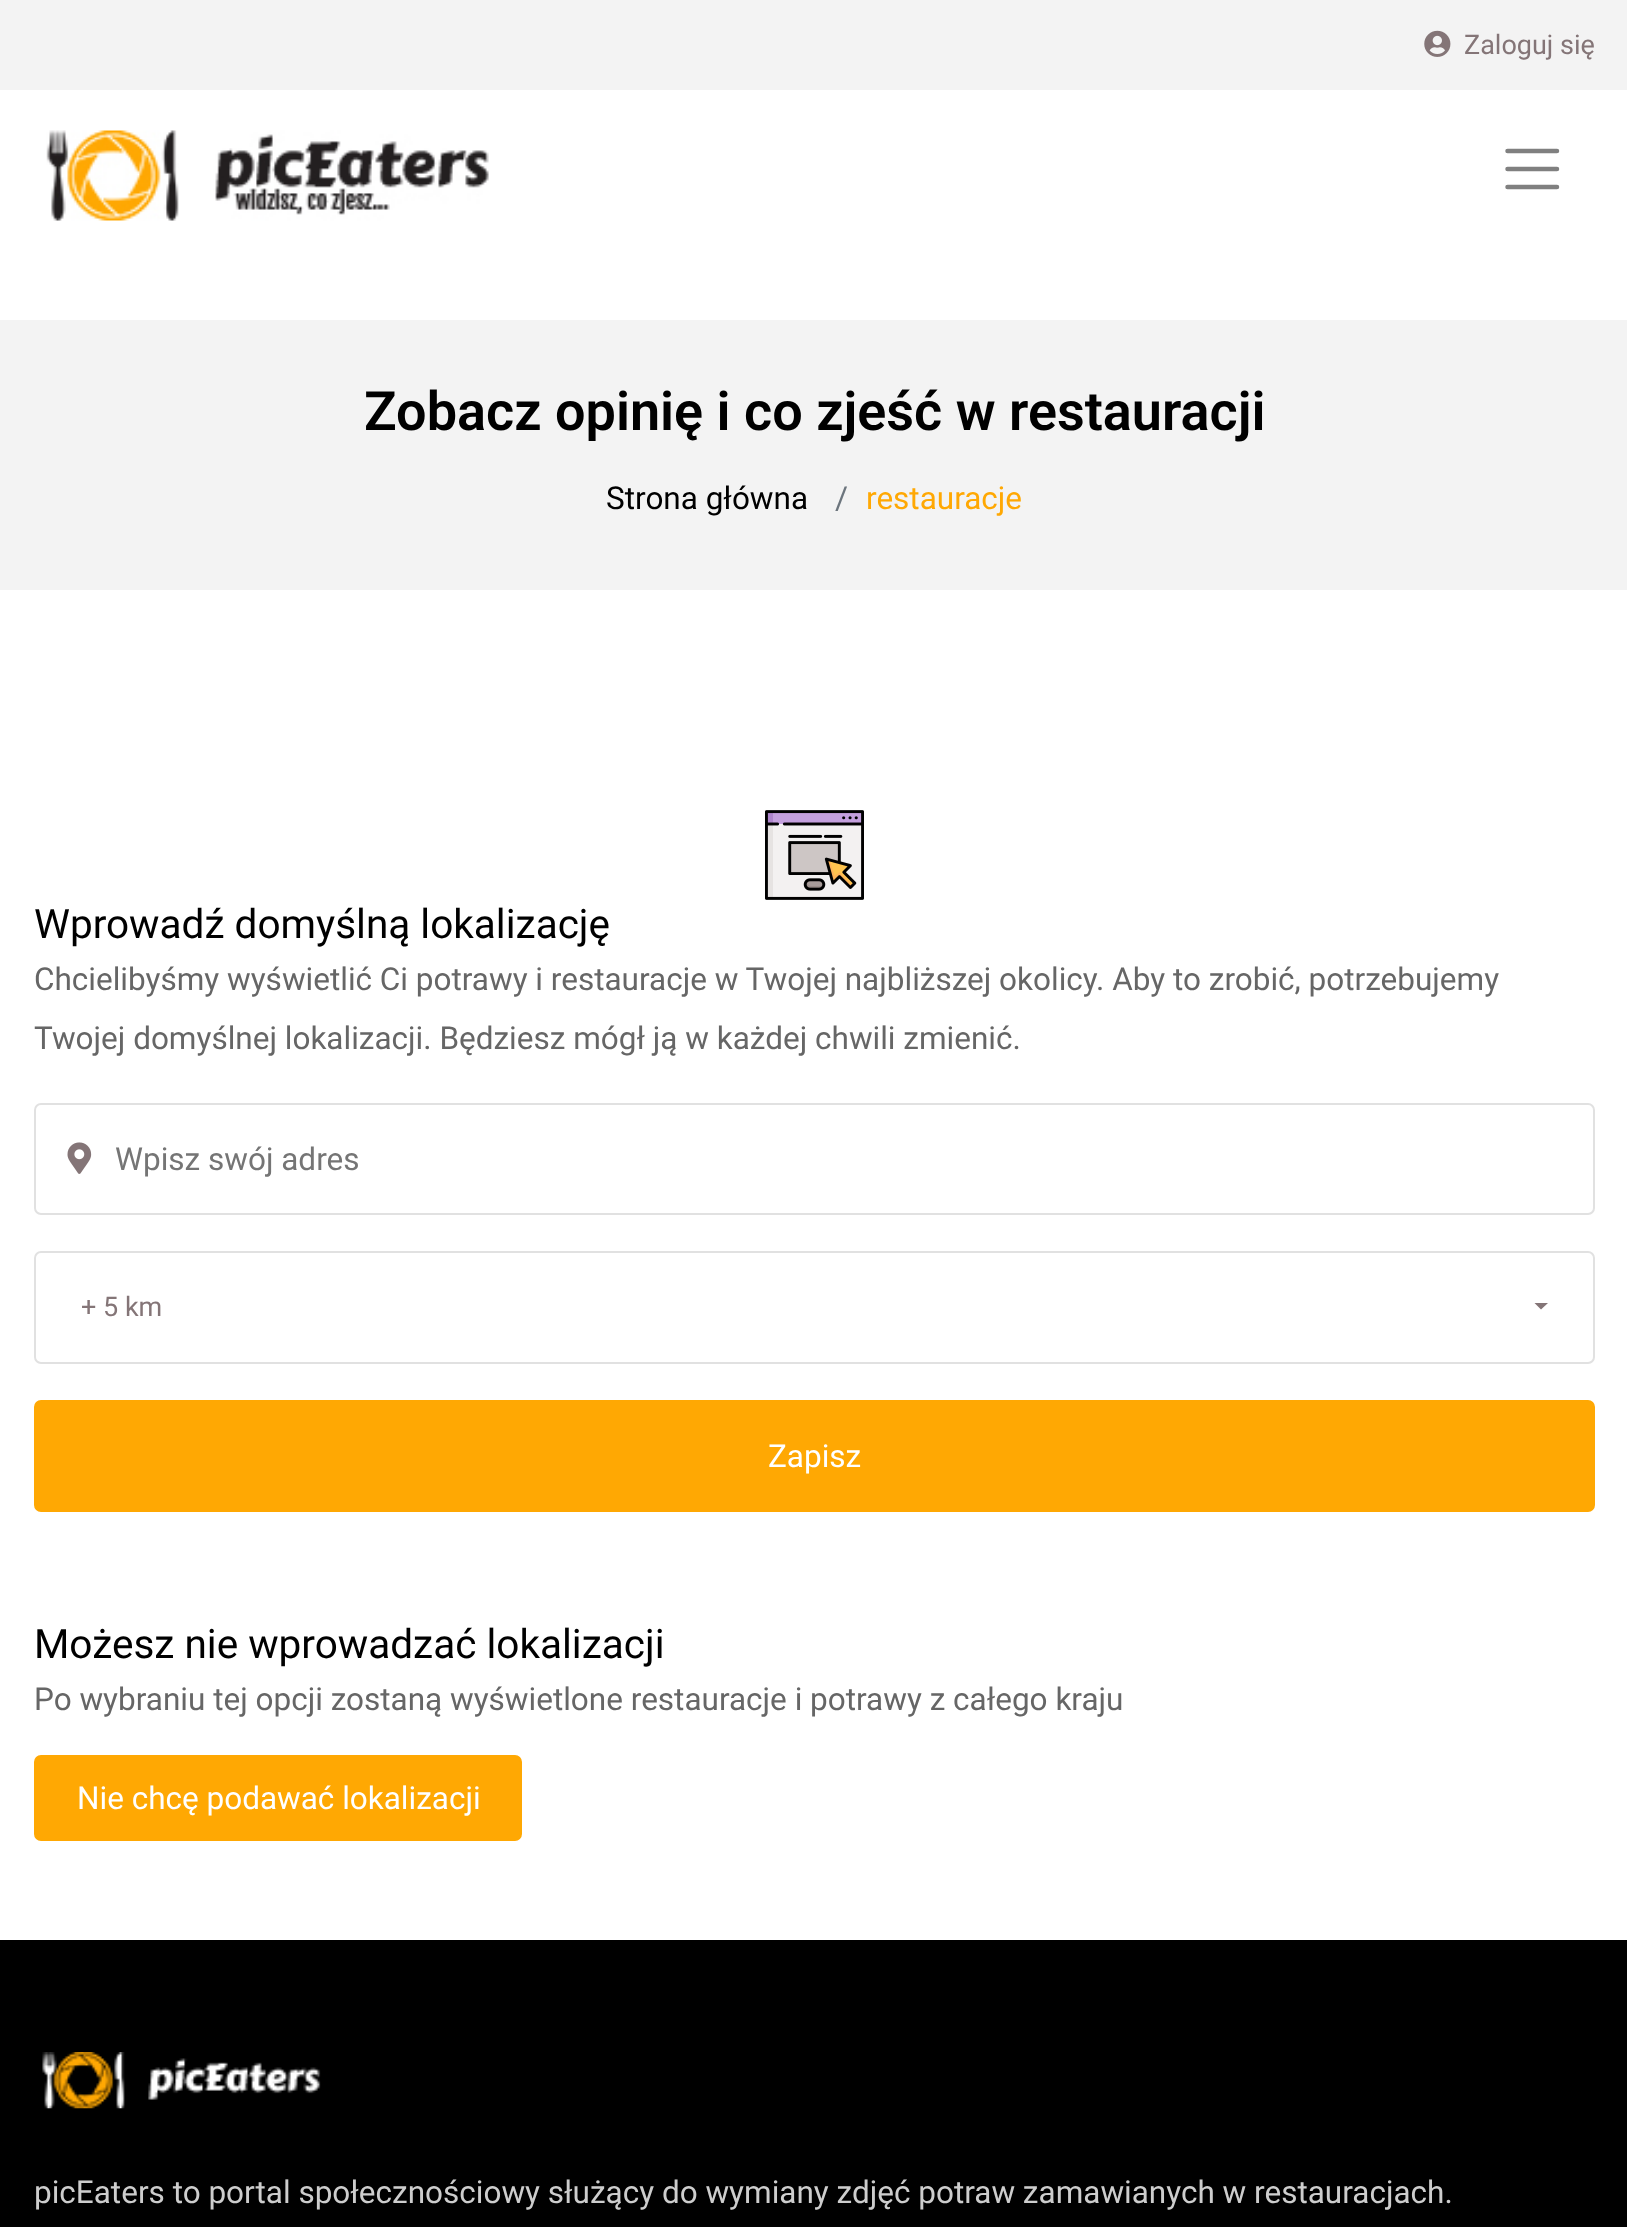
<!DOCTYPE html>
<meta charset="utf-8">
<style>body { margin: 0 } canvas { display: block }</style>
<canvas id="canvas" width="1627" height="2227"></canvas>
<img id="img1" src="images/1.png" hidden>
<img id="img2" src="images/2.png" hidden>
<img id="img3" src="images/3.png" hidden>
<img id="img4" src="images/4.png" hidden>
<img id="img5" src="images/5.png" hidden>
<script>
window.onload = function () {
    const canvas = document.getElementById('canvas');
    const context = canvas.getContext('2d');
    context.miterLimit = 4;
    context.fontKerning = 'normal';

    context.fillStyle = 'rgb(255, 255, 255)';
    context.fillRect(0, 0, 1627, 2227);
    context.fillStyle = 'rgb(243, 243, 243)';
    context.fillRect(0, 0, 1627, 90);
    context.drawImage(document.getElementById('img1'), 1424, 30, 27, 27);
    context.drawImage(document.getElementById('img2'), 46, 130, 443, 91);
    context.beginPath();
    context.moveTo(1507.5, 151);
    context.lineTo(1557, 151);
    context.moveTo(1507.5, 169);
    context.lineTo(1557, 169);
    context.moveTo(1507.5, 187);
    context.lineTo(1557, 187);
    context.strokeStyle = 'rgb(128, 128, 128)';
    context.lineWidth = 4.5;
    context.lineCap = 'round';
    context.stroke();
    context.fillRect(0, 320, 1627, 270);
    context.drawImage(document.getElementById('img3'), 765, 810, 99, 90);
    context.beginPath();
    context.roundRect(35, 1104, 1559, 110, 6);
    context.strokeStyle = 'rgb(225, 225, 225)';
    context.lineWidth = 2;
    context.stroke();
    context.drawImage(document.getElementById('img4'), 67, 1142, 25, 32);
    context.beginPath();
    context.roundRect(35, 1252, 1559, 111, 6);
    context.stroke();
    context.fillStyle = 'rgb(132, 117, 119)';
    context.beginPath();
    context.moveTo(1534.5, 1303);
    context.lineTo(1548, 1303);
    context.lineTo(1541, 1309.5);
    context.closePath();
    context.fill();
    context.fillStyle = 'rgb(255, 168, 3)';
    context.beginPath();
    context.roundRect(35, 1401, 1559, 110, 6);
    context.fill();
    context.strokeStyle = 'rgb(255, 168, 3)';
    context.stroke();
    context.beginPath();
    context.roundRect(35, 1756, 486, 84, 6);
    context.fill();
    context.stroke();
    context.fillStyle = 'rgb(0, 0, 0)';
    context.fillRect(0, 1940, 1627, 287);
    context.drawImage(document.getElementById('img5'), 42, 2052, 279, 57);
    context.font = '27px Roboto';
    context.fillStyle = 'rgb(132, 117, 119)';
    context.fillText('Zaloguj się', 1464, 54);
    context.font = '600 54px Roboto';
    context.fillStyle = 'rgb(0, 0, 0)';
    context.fillText('Zobacz opinię i co zjeść w restauracji', 364, 430);
    context.font = '31.5px Roboto';
    context.fillText('Strona główna', 606, 509);
    context.fillStyle = 'rgb(108, 117, 125)';
    context.fillText('/', 835, 509);
    context.fillStyle = 'rgb(255, 168, 3)';
    context.fillText('restauracje', 866, 509);
    context.font = '40.5px Roboto';
    context.fillStyle = 'rgb(0, 0, 0)';
    context.fillText('Wprowadź domyślną lokalizację', 34, 938);
    context.font = '31.5px Roboto';
    context.fillStyle = 'rgb(102, 102, 102)';
    context.fillText('Chcielibyśmy wyświetlić Ci potrawy i restauracje w Twojej najbliższej okolicy. Aby to zrobić, potrzebujemy', 34, 990);
    context.fillText('Twojej domyślnej lokalizacji. Będziesz mógł ją w każdej chwili zmienić.', 34, 1049);
    context.fillStyle = 'rgb(117, 117, 117)';
    context.fillText('Wpisz swój adres', 115, 1170);
    context.font = '27px Roboto';
    context.fillStyle = 'rgb(132, 117, 119)';
    context.fillText('+ 5 km', 81, 1316);
    context.font = '31.5px Roboto';
    context.fillStyle = 'rgb(255, 255, 255)';
    context.fillText('Zapisz', 768, 1467);
    context.font = '40.5px Roboto';
    context.fillStyle = 'rgb(0, 0, 0)';
    context.fillText('Możesz nie wprowadzać lokalizacji', 34, 1658);
    context.font = '31.5px Roboto';
    context.fillStyle = 'rgb(102, 102, 102)';
    context.fillText('Po wybraniu tej opcji zostaną wyświetlone restauracje i potrawy z całego kraju', 34, 1710);
    context.fillStyle = 'rgb(255, 255, 255)';
    context.fillText('Nie chcę podawać lokalizacji', 77, 1809);
    context.fillStyle = 'rgb(205, 205, 205)';
    context.fillText('picEaters to portal społecznościowy służący do wymiany zdjęć potraw zamawianych w restauracjach.', 34, 2203);
};
</script>
